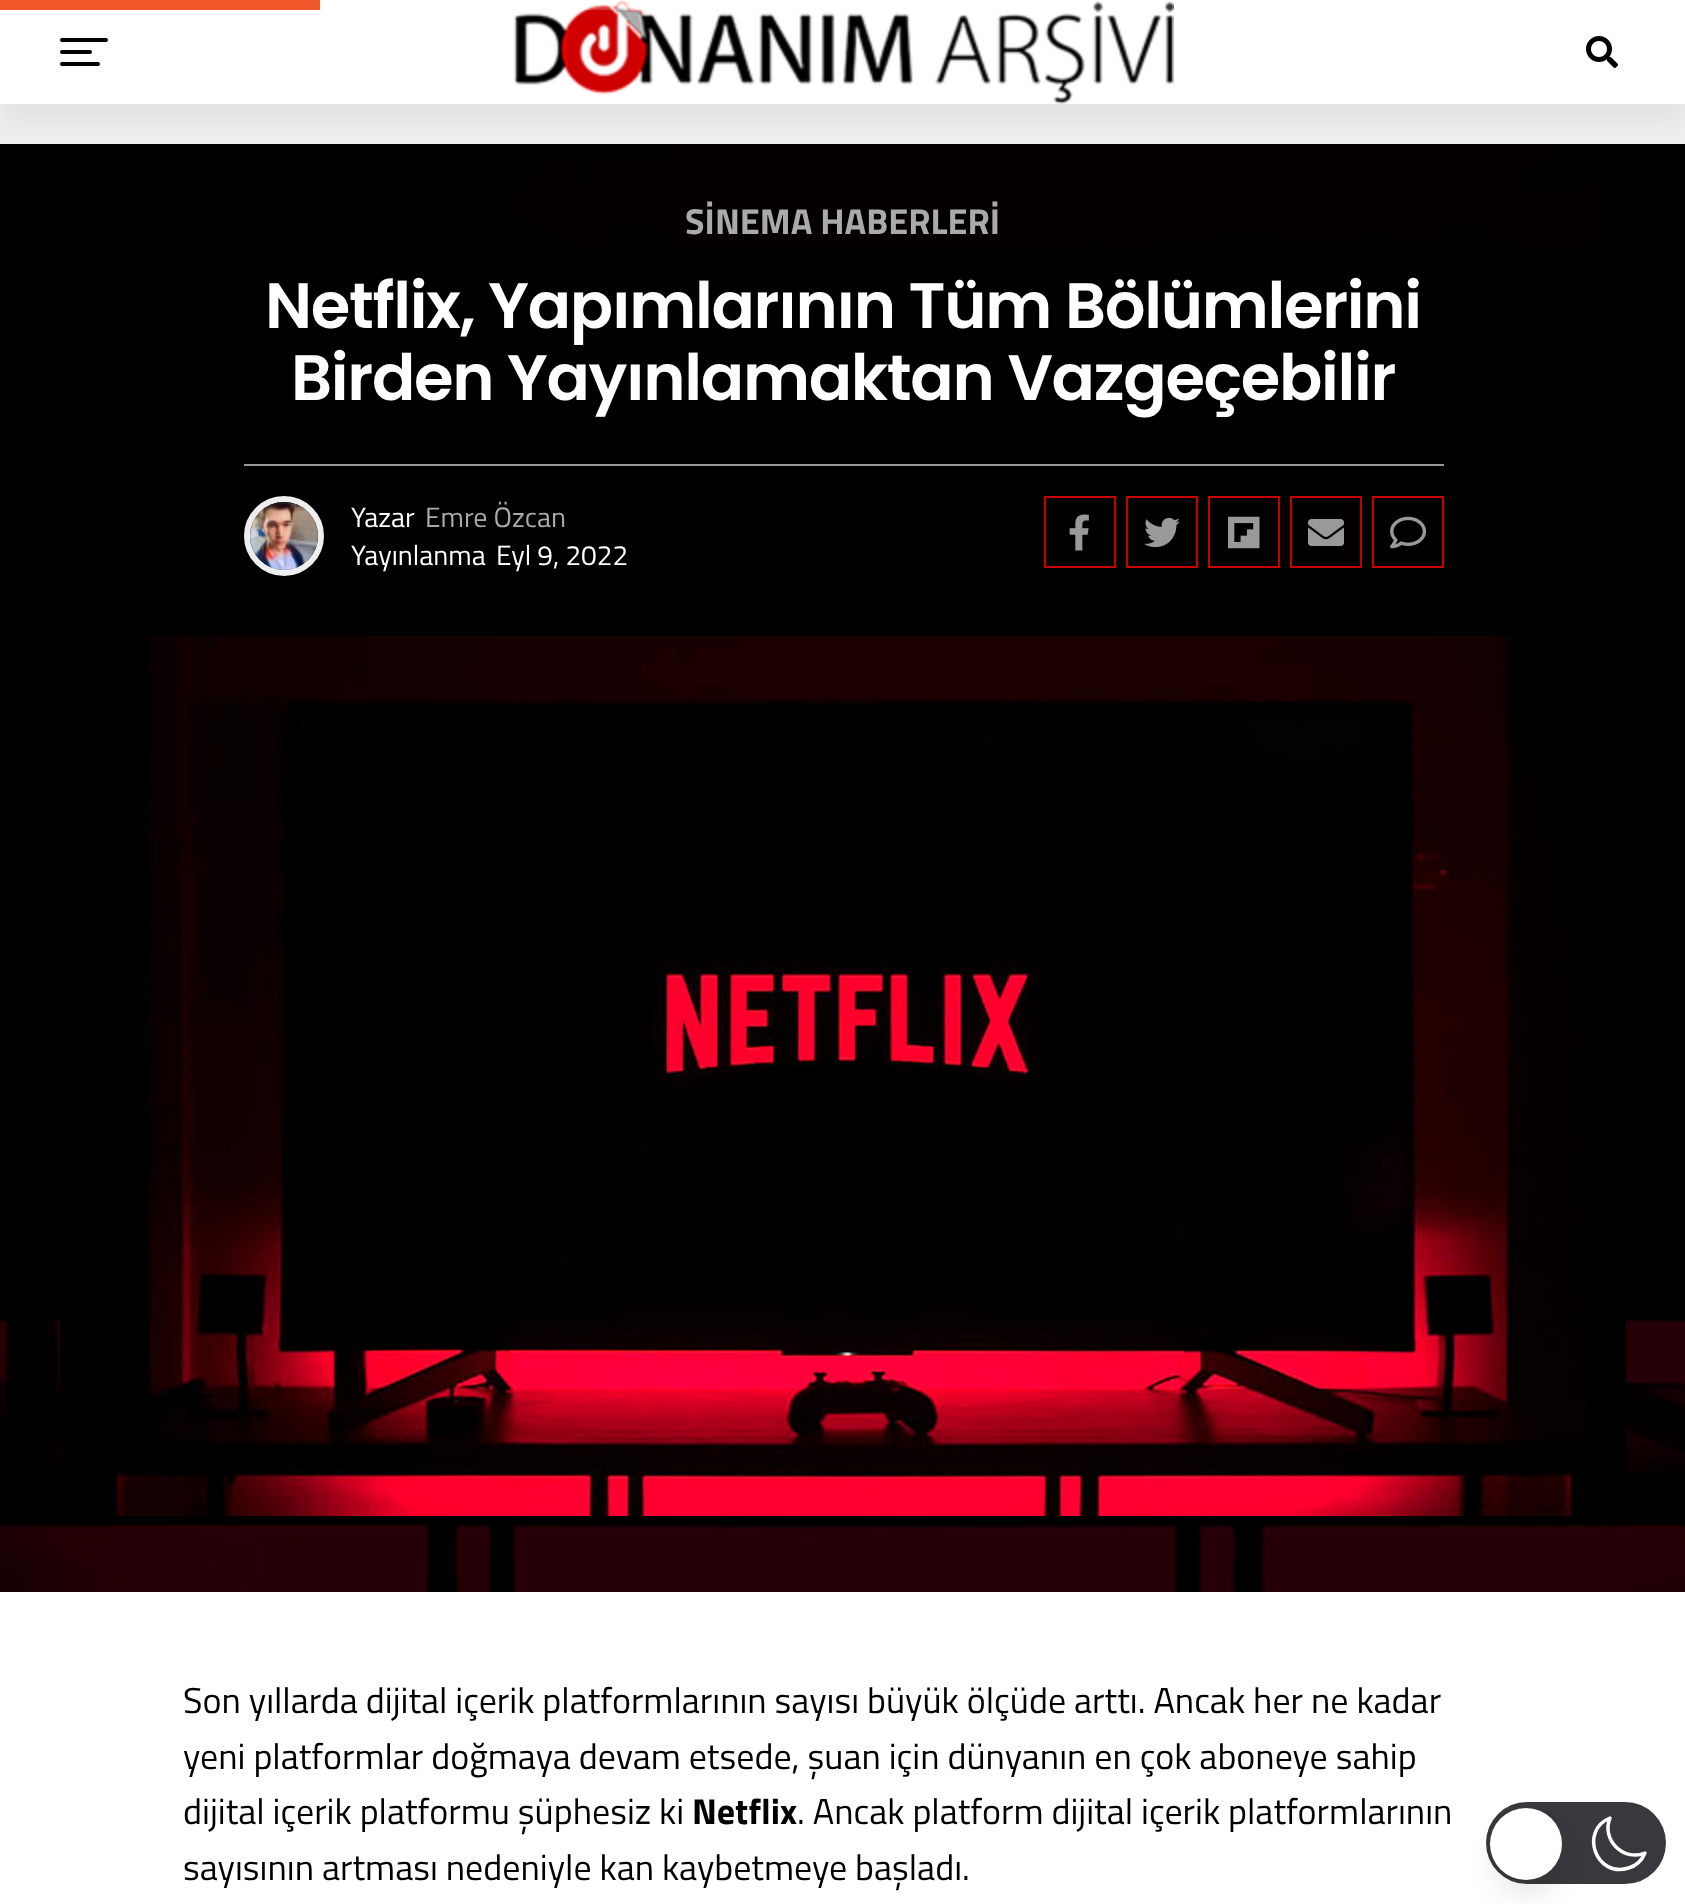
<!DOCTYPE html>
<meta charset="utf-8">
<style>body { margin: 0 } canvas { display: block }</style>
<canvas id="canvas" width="1685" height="1904"></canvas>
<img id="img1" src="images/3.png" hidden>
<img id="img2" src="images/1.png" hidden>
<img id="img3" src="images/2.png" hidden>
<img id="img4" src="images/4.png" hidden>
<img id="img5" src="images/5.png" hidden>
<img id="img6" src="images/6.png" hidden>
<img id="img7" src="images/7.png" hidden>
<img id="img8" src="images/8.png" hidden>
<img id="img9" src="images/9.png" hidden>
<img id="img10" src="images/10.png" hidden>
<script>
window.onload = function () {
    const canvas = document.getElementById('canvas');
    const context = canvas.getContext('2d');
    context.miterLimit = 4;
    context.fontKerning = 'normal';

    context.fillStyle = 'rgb(240, 240, 240)';
    context.fillRect(0, 0, 1685, 1904);
    context.fillStyle = 'rgb(0, 0, 0)';
    context.fillRect(0, 144, 1685, 1448);
    context.drawImage(document.getElementById('img1'), 0, 144, 1685, 1448);
    context.fillStyle = 'rgba(21, 21, 30, 0.08)';
    context.filter = 'blur(16px)';
    context.beginPath();
    context.rect(0, 16, 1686, 104);
    context.fill();
    context.filter = 'none';
    context.fillStyle = 'rgb(255, 255, 255)';
    context.fillRect(0, 0, 1685, 104);
    context.drawImage(document.getElementById('img2'), 514, 0, 660, 104);
    context.fillStyle = 'rgba(255, 255, 255, 0.2)';
    context.fillRect(582, 0, 592, 10);
    context.fillStyle = 'rgb(241, 89, 42)';
    context.fillRect(0, 0, 320, 10);
    context.fillStyle = 'rgb(0, 0, 0)';
    context.beginPath();
    context.roundRect(60, 38, 48, 4, 2);
    context.fill();
    context.beginPath();
    context.roundRect(60, 50, 32, 4, 2);
    context.fill();
    context.beginPath();
    context.roundRect(60, 62, 40, 4, 2);
    context.fill();
    context.drawImage(document.getElementById('img3'), 1586, 36, 32, 32);
    context.fillStyle = 'rgb(153, 153, 153)';
    context.fillRect(244, 464, 1200, 2);
    context.beginPath();
    context.arc(284, 536, 37, 0, 2 * Math.PI);
    context.strokeStyle = 'rgb(238, 238, 238)';
    context.lineWidth = 6;
    context.stroke();
    context.drawImage(document.getElementById('img4'), 250, 502, 68, 68);
    context.strokeStyle = 'rgb(201, 0, 0)';
    context.lineWidth = 2;
    context.strokeRect(1045, 497, 70, 70);
    context.drawImage(document.getElementById('img5'), 1069, 514, 20, 37);
    context.strokeRect(1127, 497, 70, 70);
    context.drawImage(document.getElementById('img6'), 1144, 517, 36, 31);
    context.strokeRect(1209, 497, 70, 70);
    context.drawImage(document.getElementById('img7'), 1228, 516, 32, 33);
    context.strokeRect(1291, 497, 70, 70);
    context.drawImage(document.getElementById('img8'), 1308, 519, 36, 27);
    context.strokeRect(1373, 497, 70, 70);
    context.drawImage(document.getElementById('img9'), 1390, 516, 37, 33);
    context.drawImage(document.getElementById('img10'), 60, 636, 1566, 880);
    context.fillStyle = 'rgb(255, 255, 255)';
    context.fillRect(0, 1592, 1685, 312);
    context.fillStyle = 'rgb(57, 57, 61)';
    context.beginPath();
    context.roundRect(1486, 1802, 180, 82, 41);
    context.fill();
    context.beginPath();
    context.moveTo(1645, 1853);
    context.bezierCurveTo(1623.5, 1862, 1601, 1839.5, 1610, 1818);
    context.bezierCurveTo(1579, 1830.5, 1596, 1878.5, 1628.5, 1868);
    context.bezierCurveTo(1636, 1866, 1642, 1860, 1645, 1853);
    context.closePath();
    context.strokeStyle = 'rgb(255, 255, 255)';
    context.lineWidth = 3.5;
    context.lineCap = 'round';
    context.lineJoin = 'round';
    context.stroke();
    context.fillStyle = 'rgba(0, 0, 0, 0.1)';
    context.filter = 'blur(15px)';
    context.beginPath();
    context.roundRect(1496, 1834, 60, 60, 30);
    context.fill();
    context.filter = 'none';
    context.fillStyle = 'rgb(255, 255, 255)';
    context.beginPath();
    context.arc(1526, 1844, 36, 0, 2 * Math.PI);
    context.fill();
    context.font = 'bold 36px Titillium Web';
    context.fillStyle = 'rgb(170, 170, 170)';
    context.fillText('SİNEMA HABERLERİ', 685, 234);
    context.letterSpacing = '-1.3px';
    context.font = '600 64px Poppins';
    context.fillStyle = 'rgb(255, 255, 255)';
    context.fillText('Netflix, Yapımlarının Tüm Bölümlerini', 265, 328);
    context.fillText('Birden Yayınlamaktan Vazgeçebilir', 291, 400);
    context.letterSpacing = '0px';
    context.font = '28px Titillium Web';
    context.fillText('Yazar', 351, 527);
    context.fillStyle = 'rgb(170, 170, 170)';
    context.fillText('Emre Özcan', 425, 527);
    context.fillStyle = 'rgb(255, 255, 255)';
    context.fillText('Yayınlanma', 351, 565);
    context.fillText('Eyl 9, 2022', 496, 565);
    context.font = '36px Titillium Web';
    context.fillStyle = 'rgb(0, 0, 0)';
    context.fillText('Son yıllarda dijital içerik platformlarının sayısı büyük ölçüde arttı. Ancak her ne kadar', 183, 1713);
    context.fillText('yeni platformlar doğmaya devam etsede, şuan için dünyanın en çok aboneye sahip', 183, 1769);
    context.fillText('dijital içerik platformu şüphesiz ki', 183, 1824);
    context.font = 'bold 36px Titillium Web';
    context.fillText('Netflix', 692, 1824);
    context.font = '36px Titillium Web';
    context.fillText('. Ancak platform dijital içerik platformlarının', 797, 1824);
    context.fillText('sayısının artması nedeniyle kan kaybetmeye başladı.', 183, 1880);
};
</script>
